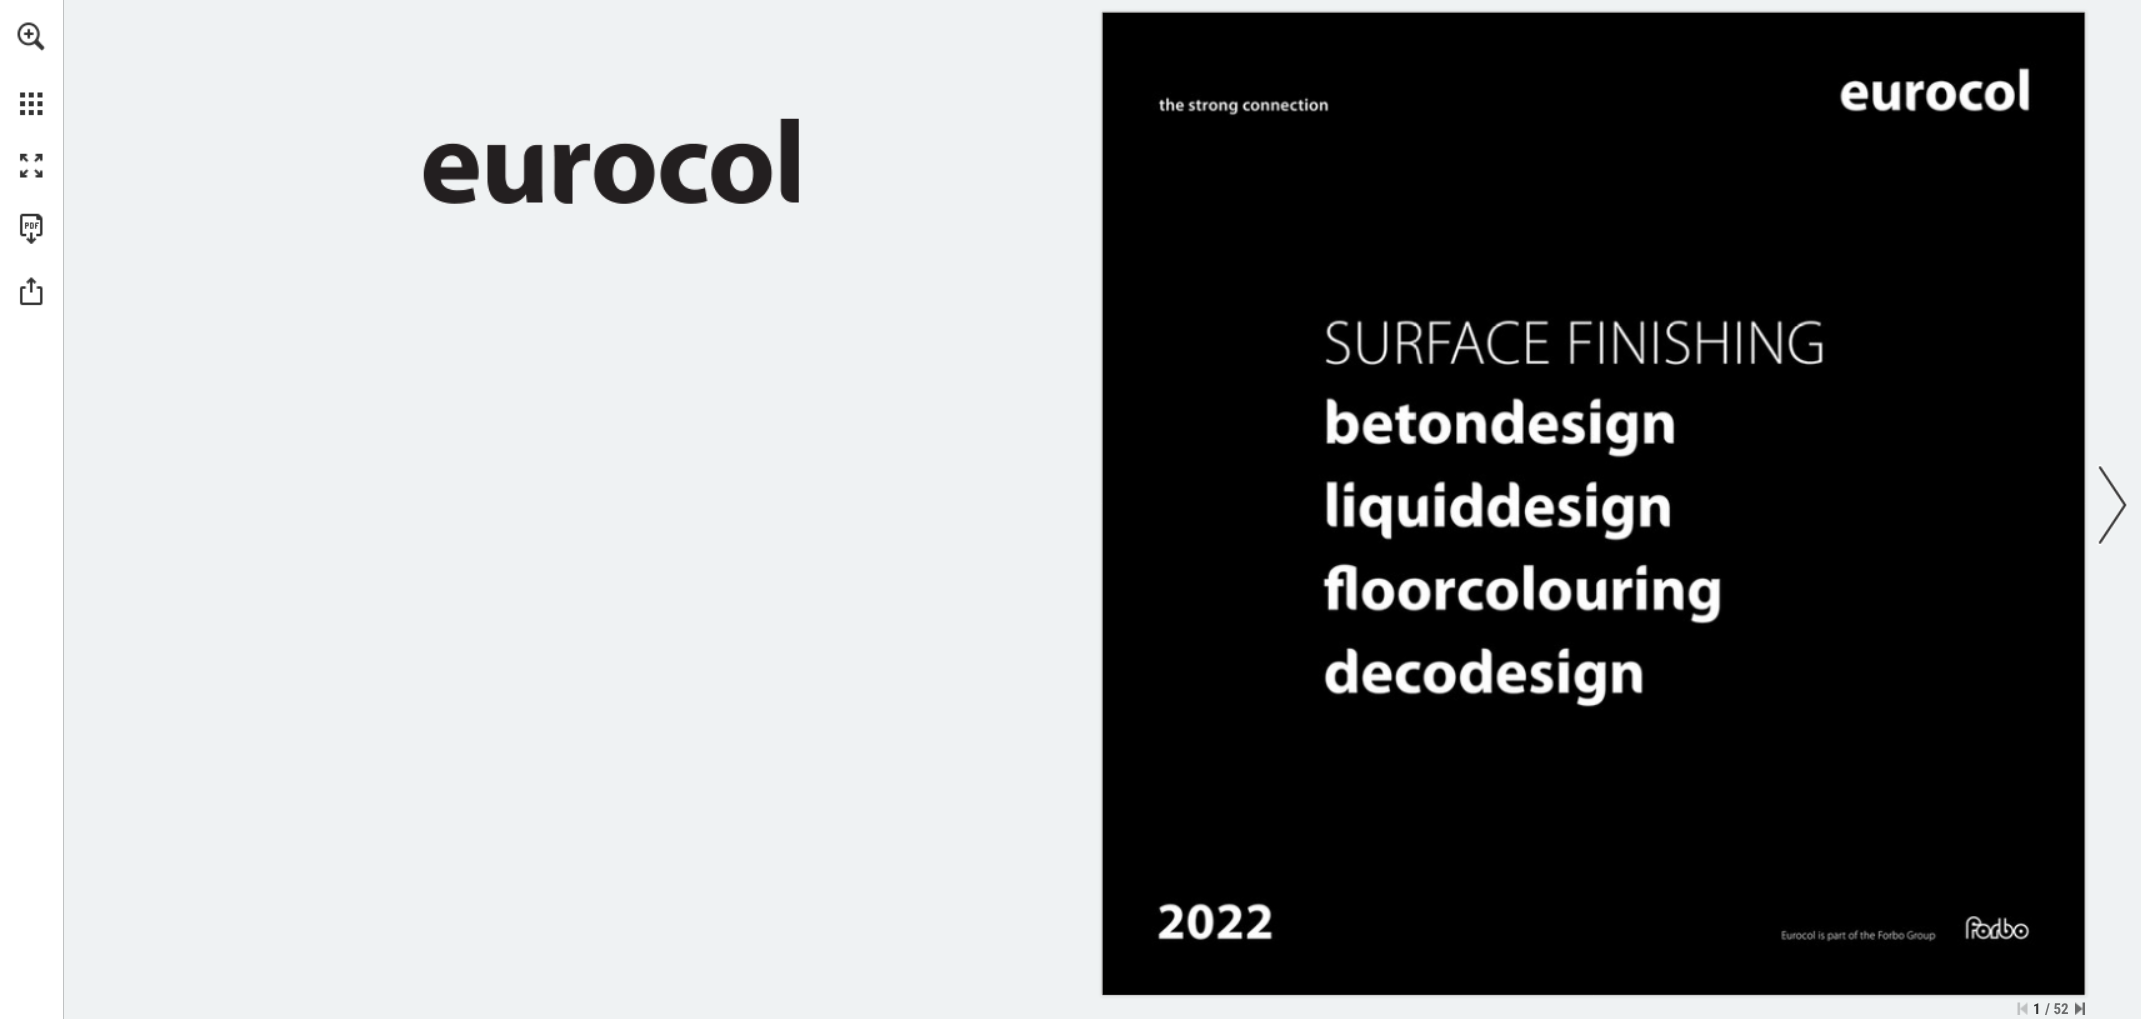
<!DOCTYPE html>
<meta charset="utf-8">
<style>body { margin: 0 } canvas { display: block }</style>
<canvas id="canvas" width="2141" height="1019"></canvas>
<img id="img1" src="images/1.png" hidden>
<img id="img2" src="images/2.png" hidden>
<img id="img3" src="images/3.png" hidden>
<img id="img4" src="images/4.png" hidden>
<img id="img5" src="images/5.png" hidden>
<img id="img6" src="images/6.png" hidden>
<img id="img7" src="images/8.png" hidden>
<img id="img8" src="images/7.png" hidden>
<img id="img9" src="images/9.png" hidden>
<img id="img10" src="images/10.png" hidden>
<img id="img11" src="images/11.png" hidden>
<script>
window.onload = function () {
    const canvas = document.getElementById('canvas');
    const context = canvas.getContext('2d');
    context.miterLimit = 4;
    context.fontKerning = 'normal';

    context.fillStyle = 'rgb(239, 242, 243)';
    context.fillRect(0, 0, 2141, 1019);
    context.fillStyle = 'rgba(0, 0, 0, 0.2)';
    context.filter = 'blur(0.5px)';
    context.beginPath();
    context.rect(1, 0, 63, 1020);
    context.fill();
    context.filter = 'none';
    context.fillStyle = 'rgb(255, 255, 255)';
    context.fillRect(0, 0, 63, 1019);
    context.drawImage(document.getElementById('img1'), 17, 22, 29, 30);
    context.drawImage(document.getElementById('img2'), 19, 92, 24, 24);
    context.drawImage(document.getElementById('img3'), 19, 153, 24, 25);
    context.drawImage(document.getElementById('img4'), 19, 213, 24, 31);
    context.drawImage(document.getElementById('img5'), 19, 277, 24, 29);
    context.fillStyle = 'rgba(18, 18, 18, 0.05)';
    context.filter = 'blur(1px)';
    context.beginPath();
    context.roundRect(1100, 10, 988, 988, 4);
    context.fill();
    context.filter = 'none';
    context.fillStyle = 'rgb(255, 255, 255)';
    context.beginPath();
    context.roundRect(1101, 11, 985, 985, 2.5);
    context.fill();
    context.beginPath();
    context.roundRect(1101.5, 11.5, 984, 984, 2);
    context.strokeStyle = 'rgba(0, 0, 0, 0.2)';
    context.stroke();
    context.drawImage(document.getElementById('img6'), 423, 118, 376, 86);
    context.drawImage(document.getElementById('img7'), 1207, 118, 878, 877);
    context.drawImage(document.getElementById('img8'), 1102, 12, 983, 983);
    context.drawImage(document.getElementById('img9'), 2096, 464, 32, 82);
    context.drawImage(document.getElementById('img10'), 2017, 1002, 11, 13);
    context.drawImage(document.getElementById('img11'), 2075, 1002, 10, 13);
    context.font = 'bold 15px Roboto Condensed';
    context.fillStyle = 'rgb(51, 51, 51)';
    context.fillText('1', 2033, 1014);
    context.fillStyle = 'rgb(107, 108, 109)';
    context.fillText('/ 52', 2045, 1014);
};
</script>
